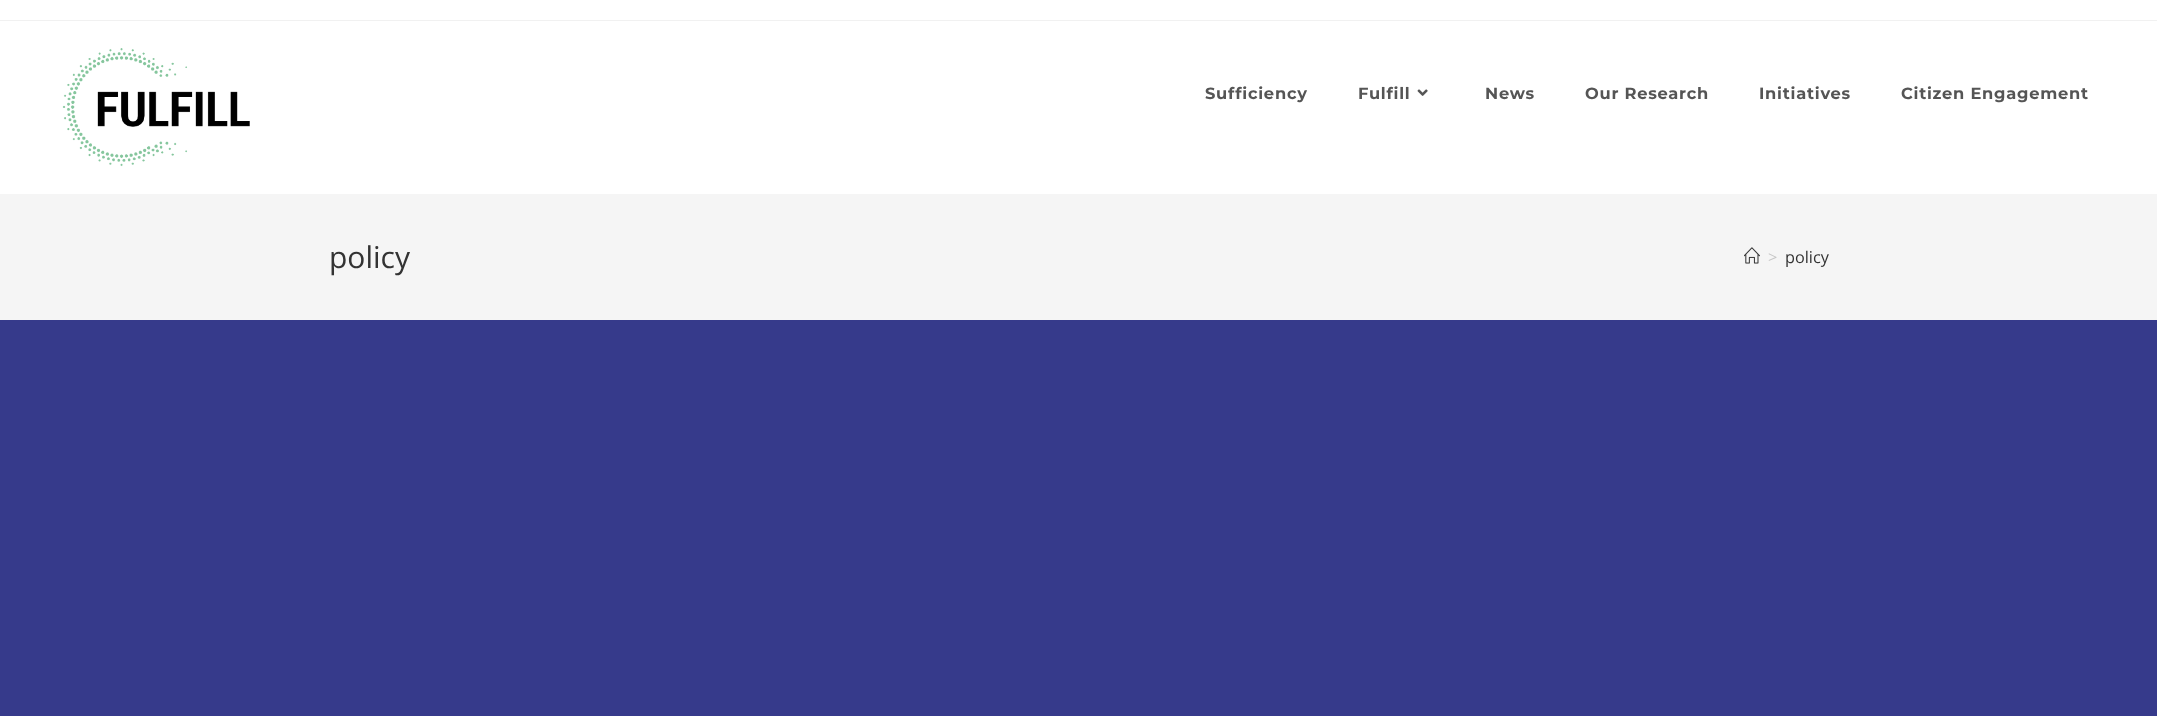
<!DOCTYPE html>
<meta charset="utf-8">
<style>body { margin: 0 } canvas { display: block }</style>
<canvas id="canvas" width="2157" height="716"></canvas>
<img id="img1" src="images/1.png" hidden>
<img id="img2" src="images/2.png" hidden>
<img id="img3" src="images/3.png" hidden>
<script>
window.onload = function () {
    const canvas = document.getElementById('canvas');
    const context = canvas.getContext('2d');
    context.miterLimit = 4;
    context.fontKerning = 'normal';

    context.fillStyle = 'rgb(255, 255, 255)';
    context.fillRect(0, 0, 2157, 716);
    context.fillStyle = 'rgb(241, 241, 241)';
    context.fillRect(0, 20, 2157, 1);
    context.drawImage(document.getElementById('img1'), 62, 48, 188, 119);
    context.drawImage(document.getElementById('img2'), 1417, 89, 11, 7);
    context.fillStyle = 'rgb(245, 245, 245)';
    context.fillRect(0, 194, 2157, 126);
    context.drawImage(document.getElementById('img3'), 1744, 247, 16, 17);
    context.fillStyle = 'rgb(54, 58, 139)';
    context.fillRect(0, 320, 2157, 396);
    context.letterSpacing = '0.75px';
    context.font = 'bold 16.25px Montserrat';
    context.fillStyle = 'rgb(85, 85, 85)';
    context.fillText('Sufficiency', 1205, 99);
    context.fillText('Fulfill', 1358, 99);
    context.fillText('News', 1485, 99);
    context.fillText('Our Research', 1585, 99);
    context.fillText('Initiatives', 1759, 99);
    context.fillText('Citizen Engagement', 1901, 99);
    context.letterSpacing = '0px';
    context.font = '30px Open Sans';
    context.fillStyle = 'rgb(51, 51, 51)';
    context.fillText('policy', 329, 268);
    context.font = '16.25px Open Sans';
    context.fillStyle = 'rgb(198, 198, 198)';
    context.fillText('>', 1768, 263);
    context.fillStyle = 'rgb(51, 51, 51)';
    context.fillText('policy', 1785, 263);
};
</script>
